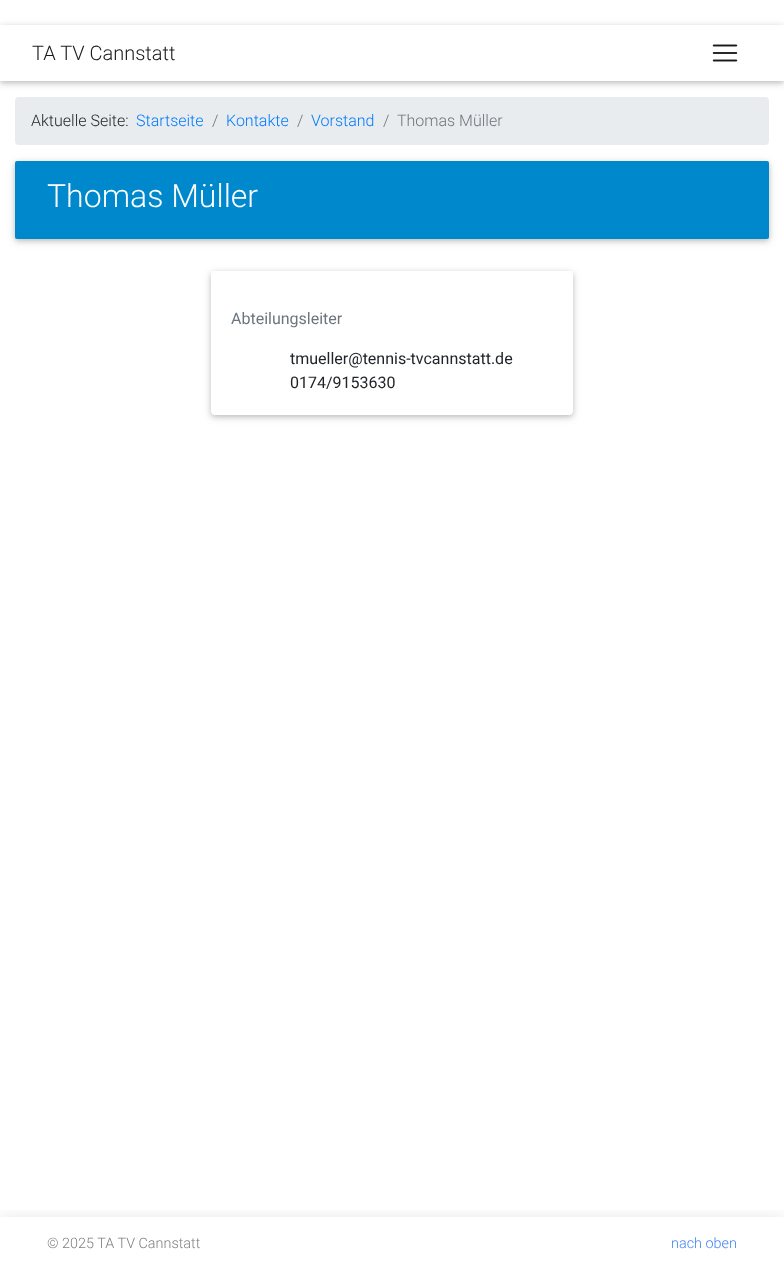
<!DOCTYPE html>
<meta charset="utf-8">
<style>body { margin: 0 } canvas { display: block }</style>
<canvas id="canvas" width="784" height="1271"></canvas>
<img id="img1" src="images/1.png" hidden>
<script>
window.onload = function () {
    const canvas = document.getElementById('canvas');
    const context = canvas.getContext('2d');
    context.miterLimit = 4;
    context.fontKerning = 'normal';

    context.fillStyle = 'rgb(255, 255, 255)';
    context.fillRect(0, 0, 784, 1271);
    context.save();
    context.beginPath();
    context.moveTo(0, 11);
    context.lineTo(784, 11);
    context.lineTo(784, 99);
    context.lineTo(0, 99);
    context.closePath();
    context.moveTo(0, 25);
    context.lineTo(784, 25);
    context.lineTo(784, 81);
    context.lineTo(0, 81);
    context.closePath();
    context.clip('evenodd');
    context.fillStyle = 'rgba(0, 0, 0, 0.12)';
    context.filter = 'blur(5px)';
    context.beginPath();
    context.rect(0, 27, 784, 56);
    context.fill();
    context.filter = 'none';
    context.restore();
    context.save();
    context.beginPath();
    context.moveTo(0, 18);
    context.lineTo(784, 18);
    context.lineTo(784, 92);
    context.lineTo(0, 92);
    context.closePath();
    context.moveTo(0, 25);
    context.lineTo(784, 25);
    context.lineTo(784, 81);
    context.lineTo(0, 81);
    context.closePath();
    context.clip('evenodd');
    context.fillStyle = 'rgba(0, 0, 0, 0.16)';
    context.filter = 'blur(2.5px)';
    context.beginPath();
    context.rect(0, 27, 784, 56);
    context.fill();
    context.filter = 'none';
    context.restore();
    context.drawImage(document.getElementById('img1'), 712, 44, 26, 18);
    context.fillStyle = 'rgb(233, 236, 239)';
    context.beginPath();
    context.roundRect(15, 97, 754, 48, 4);
    context.fill();
    context.fillStyle = 'rgba(0, 0, 0, 0.12)';
    context.filter = 'blur(5px)';
    context.beginPath();
    context.roundRect(15, 163, 754, 78, 2);
    context.fill();
    context.filter = 'none';
    context.fillStyle = 'rgba(0, 0, 0, 0.16)';
    context.filter = 'blur(2.5px)';
    context.beginPath();
    context.roundRect(15, 163, 754, 78, 2);
    context.fill();
    context.filter = 'none';
    context.fillStyle = 'rgb(0, 136, 204)';
    context.beginPath();
    context.roundRect(15, 161, 754, 78, 2);
    context.fill();
    context.fillStyle = 'rgba(0, 0, 0, 0.12)';
    context.filter = 'blur(5px)';
    context.beginPath();
    context.roundRect(211, 273, 362, 144, 4);
    context.fill();
    context.filter = 'none';
    context.fillStyle = 'rgba(0, 0, 0, 0.16)';
    context.filter = 'blur(2.5px)';
    context.beginPath();
    context.roundRect(211, 273, 362, 144, 4);
    context.fill();
    context.filter = 'none';
    context.fillStyle = 'rgb(255, 255, 255)';
    context.beginPath();
    context.roundRect(211, 271, 362, 144, 4);
    context.fill();
    context.fillRect(211, 271, 362, 3);
    context.save();
    context.beginPath();
    context.rect(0, 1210, 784, 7);
    context.clip();
    context.fillStyle = 'rgba(0, 0, 0, 0.19)';
    context.filter = 'blur(10px)';
    context.beginPath();
    context.rect(0, 1223, 784, 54);
    context.fill();
    context.filter = 'none';
    context.restore();
    context.font = '300 20px Roboto';
    context.fillStyle = 'rgb(26, 26, 26)';
    context.fillText('TA TV Cannstatt', 32, 60);
    context.font = '300 16px Roboto';
    context.fillStyle = 'rgb(33, 37, 41)';
    context.fillText('Aktuelle Seite:', 31, 126);
    context.fillStyle = 'rgb(0, 123, 255)';
    context.fillText('Startseite', 136, 126);
    context.fillStyle = 'rgb(108, 117, 125)';
    context.fillText('/', 212, 126);
    context.fillStyle = 'rgb(0, 123, 255)';
    context.fillText('Kontakte', 226, 126);
    context.fillStyle = 'rgb(108, 117, 125)';
    context.fillText('/', 297, 126);
    context.fillStyle = 'rgb(0, 123, 255)';
    context.fillText('Vorstand', 311, 126);
    context.fillStyle = 'rgb(108, 117, 125)';
    context.fillText('/', 383, 126);
    context.fillText('Thomas Müller', 397, 126);
    context.font = '300 32px Roboto';
    context.fillStyle = 'rgb(255, 255, 255)';
    context.fillText('Thomas Müller', 47, 207);
    context.font = '16px Roboto';
    context.fillStyle = 'rgb(108, 117, 125)';
    context.fillText('Abteilungsleiter', 231, 324);
    context.fillStyle = 'rgb(33, 37, 41)';
    context.fillText('tmueller@tennis-tvcannstatt.de', 290, 364);
    context.fillText('0174/9153630', 290, 388);
    context.font = '300 14.4px Roboto';
    context.fillStyle = 'rgb(128, 128, 128)';
    context.fillText('© 2025 TA TV Cannstatt', 47, 1248);
    context.fillStyle = 'rgb(66, 133, 244)';
    context.fillText('nach oben', 671, 1248);
};
</script>
